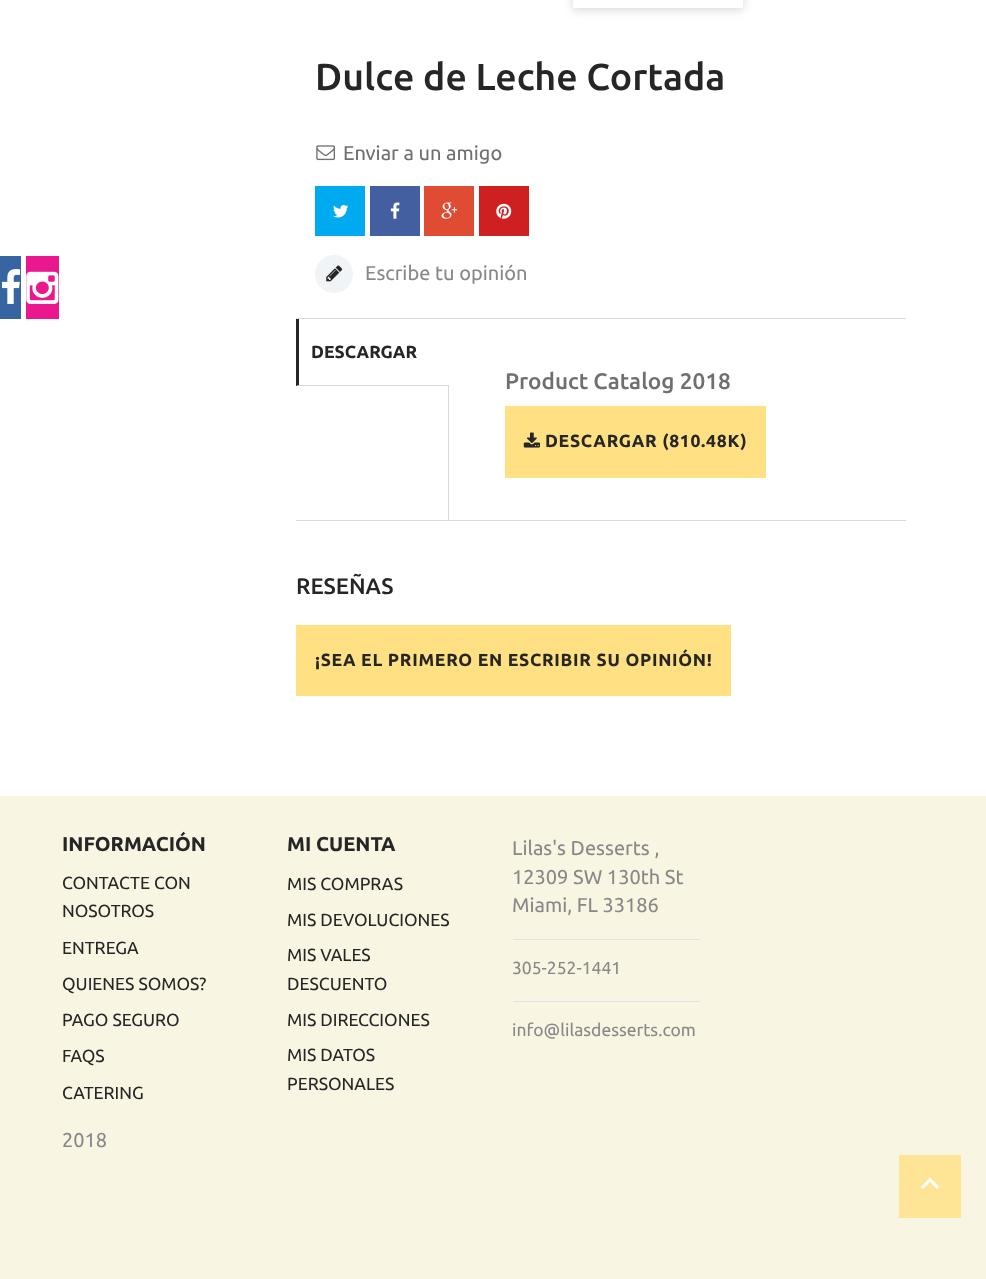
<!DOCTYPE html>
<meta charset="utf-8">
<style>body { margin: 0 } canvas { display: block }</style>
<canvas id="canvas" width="986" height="1279"></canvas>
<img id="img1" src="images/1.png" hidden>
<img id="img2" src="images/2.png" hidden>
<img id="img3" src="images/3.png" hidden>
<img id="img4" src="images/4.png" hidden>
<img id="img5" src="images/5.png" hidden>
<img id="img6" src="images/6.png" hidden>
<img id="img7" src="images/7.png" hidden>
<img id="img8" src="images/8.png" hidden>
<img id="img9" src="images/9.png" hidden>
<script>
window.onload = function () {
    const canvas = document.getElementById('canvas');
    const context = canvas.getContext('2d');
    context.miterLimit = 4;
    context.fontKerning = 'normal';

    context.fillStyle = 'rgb(255, 255, 255)';
    context.fillRect(0, 0, 986, 1279);
    context.save();
    context.beginPath();
    context.moveTo(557, 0);
    context.lineTo(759, 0);
    context.lineTo(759, 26);
    context.lineTo(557, 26);
    context.closePath();
    context.moveTo(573, -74);
    context.lineTo(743, -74);
    context.lineTo(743, 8);
    context.lineTo(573, 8);
    context.closePath();
    context.clip('evenodd');
    context.fillStyle = 'rgba(0, 0, 0, 0.16)';
    context.filter = 'blur(5px)';
    context.beginPath();
    context.rect(573, -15, 170, 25);
    context.fill();
    context.filter = 'none';
    context.restore();
    context.fillStyle = 'rgba(255, 255, 255, 0.5)';
    context.fillRect(573, 0, 170, 8);
    context.drawImage(document.getElementById('img1'), 316, 145, 19, 16);
    context.fillStyle = 'rgb(0, 170, 240)';
    context.fillRect(315, 186, 50, 50);
    context.drawImage(document.getElementById('img2'), 333, 205, 16, 13);
    context.fillStyle = 'rgb(67, 95, 159)';
    context.fillRect(370, 186, 50, 50);
    context.drawImage(document.getElementById('img3'), 390, 202, 10, 17);
    context.fillStyle = 'rgb(224, 75, 52)';
    context.fillRect(424, 186, 50, 50);
    context.drawImage(document.getElementById('img4'), 441, 202, 16, 17);
    context.fillStyle = 'rgb(206, 31, 33)';
    context.fillRect(479, 186, 50, 50);
    context.drawImage(document.getElementById('img5'), 496, 203, 16, 16);
    context.fillStyle = 'rgb(241, 244, 247)';
    context.beginPath();
    context.arc(334, 274, 19, 0, 2 * Math.PI);
    context.fill();
    context.drawImage(document.getElementById('img6'), 326, 265, 17, 17);
    context.fillStyle = 'rgb(210, 218, 227)';
    context.fillRect(296, 318, 610, 1);
    context.fillRect(296, 520, 610, 1);
    context.beginPath();
    context.moveTo(449, 386);
    context.lineTo(296, 386);
    context.lineTo(299, 385);
    context.lineTo(449, 385);
    context.closePath();
    context.fill();
    context.fillStyle = 'rgb(38, 38, 38)';
    context.beginPath();
    context.moveTo(296, 386);
    context.lineTo(296, 319);
    context.lineTo(299, 319);
    context.lineTo(299, 385);
    context.closePath();
    context.fill();
    context.fillStyle = 'rgb(210, 218, 227)';
    context.fillRect(448, 386, 1, 134);
    context.fillStyle = 'rgb(255, 224, 130)';
    context.fillRect(505, 406, 261, 72);
    context.drawImage(document.getElementById('img7'), 523, 432, 17, 16);
    context.fillRect(296, 625, 435, 71);
    context.fillStyle = 'rgb(249, 245, 227)';
    context.fillRect(0, 796, 986, 483);
    context.fillStyle = 'rgb(55, 101, 162)';
    context.fillRect(0, 256, 21, 63);
    context.drawImage(document.getElementById('img8'), 2, 269, 19, 35);
    context.fillStyle = 'rgb(235, 23, 143)';
    context.fillRect(26, 256, 33, 63);
    context.drawImage(document.getElementById('img9'), 26, 271, 33, 33);
    context.fillStyle = 'rgb(226, 226, 226)';
    context.fillRect(513, 939, 187, 1);
    context.fillRect(513, 1001, 187, 1);
    context.fillStyle = 'rgb(254, 228, 149)';
    context.fillRect(899, 1155, 62, 63);
    context.fillStyle = 'rgb(254, 253, 249)';
    context.beginPath();
    context.moveTo(930, 1177.5);
    context.lineTo(939.5, 1187);
    context.lineTo(937, 1189);
    context.lineTo(930, 1182);
    context.lineTo(923, 1189);
    context.lineTo(920.5, 1187);
    context.closePath();
    context.fill();
    context.font = '500 37.5px Ubuntu';
    context.fillStyle = 'rgb(38, 38, 38)';
    context.fillText('Dulce de Leche Cortada', 315, 90);
    context.font = '20px Ubuntu';
    context.fillStyle = 'rgb(111, 111, 111)';
    context.fillText('Enviar a un amigo', 343, 160);
    context.fillStyle = 'rgb(136, 136, 136)';
    context.fillText('Escribe tu opinión', 365, 280);
    context.font = 'bold 17.5px Ubuntu';
    context.fillStyle = 'rgb(38, 38, 38)';
    context.fillText('DESCARGAR', 311, 358);
    context.font = '500 22.5px Ubuntu';
    context.fillStyle = 'rgb(111, 111, 111)';
    context.fillText('Product Catalog 2018', 505, 389);
    context.letterSpacing = '0.7px';
    context.font = 'bold 17.5px Ubuntu';
    context.fillStyle = 'rgb(38, 38, 38)';
    context.fillText('DESCARGAR (810.48K)', 545, 447);
    context.letterSpacing = '0px';
    context.font = '500 22.5px Ubuntu';
    context.fillText('RESEÑAS', 296, 594);
    context.letterSpacing = '0.7px';
    context.font = 'bold 17.5px Ubuntu';
    context.fillText('¡SEA EL PRIMERO EN ESCRIBIR SU OPINIÓN!', 315, 666);
    context.letterSpacing = '0px';
    context.font = 'bold 20px Ubuntu';
    context.fillText('INFORMACIÓN', 62, 851);
    context.font = '17.5px Ubuntu';
    context.fillText('CONTACTE CON', 62, 889);
    context.fillText('NOSOTROS', 62, 917);
    context.fillText('ENTREGA', 62, 954);
    context.fillText('QUIENES SOMOS?', 62, 990);
    context.fillText('PAGO SEGURO', 62, 1026);
    context.fillText('FAQS', 62, 1062);
    context.fillText('CATERING', 62, 1099);
    context.font = '20px Ubuntu';
    context.fillStyle = 'rgb(136, 136, 136)';
    context.fillText('2018', 62, 1147);
    context.font = 'bold 20px Ubuntu';
    context.fillStyle = 'rgb(38, 38, 38)';
    context.fillText('MI CUENTA', 287, 851);
    context.font = '17.5px Ubuntu';
    context.fillText('MIS COMPRAS', 287, 890);
    context.fillText('MIS DEVOLUCIONES', 287, 926);
    context.fillText('MIS VALES', 287, 961);
    context.fillText('DESCUENTO', 287, 990);
    context.fillText('MIS DIRECCIONES', 287, 1026);
    context.fillText('MIS DATOS', 287, 1061);
    context.fillText('PERSONALES', 287, 1090);
    context.font = '20px Ubuntu';
    context.fillStyle = 'rgb(136, 136, 136)';
    context.fillText('Lilas\'s Desserts ,', 512, 855);
    context.fillText('12309 SW 130th St', 512, 884);
    context.fillText('Miami, FL 33186', 512, 912);
    context.font = '17.5px Ubuntu';
    context.fillText('305-252-1441', 512, 974);
    context.fillText('info@lilasdesserts.com', 512, 1036);
};
</script>
